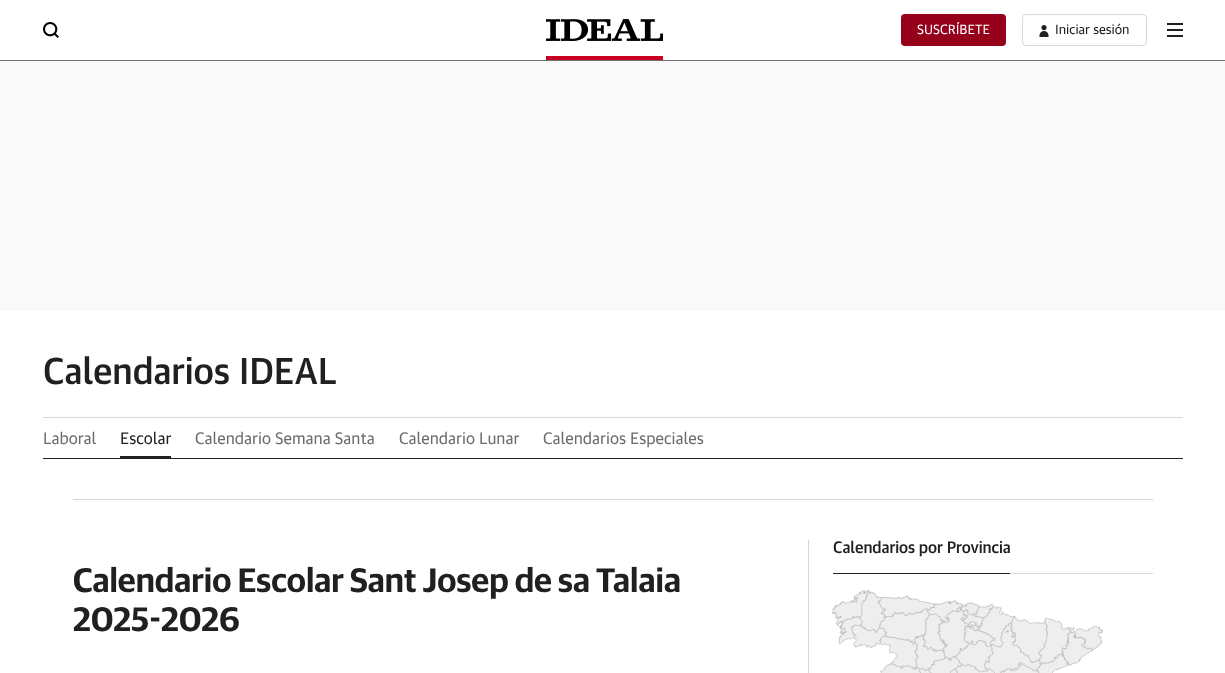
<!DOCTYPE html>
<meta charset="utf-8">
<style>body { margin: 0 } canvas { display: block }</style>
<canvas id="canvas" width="1225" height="673"></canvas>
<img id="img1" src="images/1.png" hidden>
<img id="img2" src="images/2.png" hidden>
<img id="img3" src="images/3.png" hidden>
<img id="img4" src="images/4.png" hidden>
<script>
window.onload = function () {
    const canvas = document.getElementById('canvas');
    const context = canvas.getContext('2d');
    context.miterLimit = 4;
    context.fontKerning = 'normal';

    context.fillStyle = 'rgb(255, 255, 255)';
    context.fillRect(0, 0, 1225, 673);
    context.fillStyle = 'rgb(107, 107, 107)';
    context.fillRect(0, 60, 1225, 1);
    context.drawImage(document.getElementById('img1'), 43, 22, 16, 16);
    context.drawImage(document.getElementById('img2'), 546, 19, 117, 22);
    context.fillStyle = 'rgb(201, 0, 34)';
    context.fillRect(546, 56, 117, 4);
    context.fillStyle = 'rgb(151, 0, 26)';
    context.beginPath();
    context.roundRect(901, 14, 105, 32, 4);
    context.fill();
    context.beginPath();
    context.roundRect(1022.5, 14.5, 124, 31, 3.5);
    context.strokeStyle = 'rgb(215, 215, 215)';
    context.stroke();
    context.drawImage(document.getElementById('img3'), 1039, 25, 10, 12);
    context.fillStyle = 'rgb(32, 32, 32)';
    context.fillRect(1167, 23, 16, 2);
    context.fillRect(1167, 29, 16, 2);
    context.fillRect(1167, 35, 16, 2);
    context.fillStyle = 'rgb(249, 249, 249)';
    context.fillRect(0, 61, 1225, 250);
    context.fillStyle = 'rgb(215, 215, 215)';
    context.fillRect(43, 417, 1140, 1);
    context.fillStyle = 'rgb(32, 32, 32)';
    context.fillRect(43, 458, 1140, 1);
    context.fillRect(120, 456, 51, 2);
    context.fillStyle = 'rgb(215, 215, 215)';
    context.fillRect(73, 499, 1080, 1);
    context.fillStyle = 'rgb(32, 32, 32)';
    context.fillRect(833, 573, 177, 1);
    context.fillStyle = 'rgb(215, 215, 215)';
    context.fillRect(1010, 573, 143, 1);
    context.drawImage(document.getElementById('img4'), 832, 590, 272, 83);
    context.fillRect(808, 540, 1, 133);
    context.font = '13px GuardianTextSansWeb';
    context.fillStyle = 'rgb(255, 255, 255)';
    context.fillText('SUSCRÍBETE', 917, 34);
    context.fillStyle = 'rgb(32, 32, 32)';
    context.fillText('Iniciar sesión', 1055, 34);
    context.font = '500 36px GuardianTextSansWeb';
    context.fillText('Calendarios IDEAL', 43, 384);
    context.font = '16px GuardianTextSansWeb';
    context.fillStyle = 'rgb(107, 107, 107)';
    context.fillText('Laboral', 43, 444);
    context.fillStyle = 'rgb(32, 32, 32)';
    context.fillText('Escolar', 120, 444);
    context.fillStyle = 'rgb(107, 107, 107)';
    context.fillText('Calendario Semana Santa', 195, 444);
    context.fillText('Calendario Lunar', 399, 444);
    context.fillText('Calendarios Especiales', 543, 444);
    context.letterSpacing = '-0.1px';
    context.font = '500 16px GuardianTextSansWeb';
    context.fillStyle = 'rgb(32, 32, 32)';
    context.fillText('Calendarios por Provincia', 833, 553);
    context.letterSpacing = '0px';
    context.font = '600 34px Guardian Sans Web';
    context.fillText('Calendario Escolar Sant Josep de sa Talaia', 73, 592);
    context.fillText('2025-2026', 73, 631);
};
</script>
